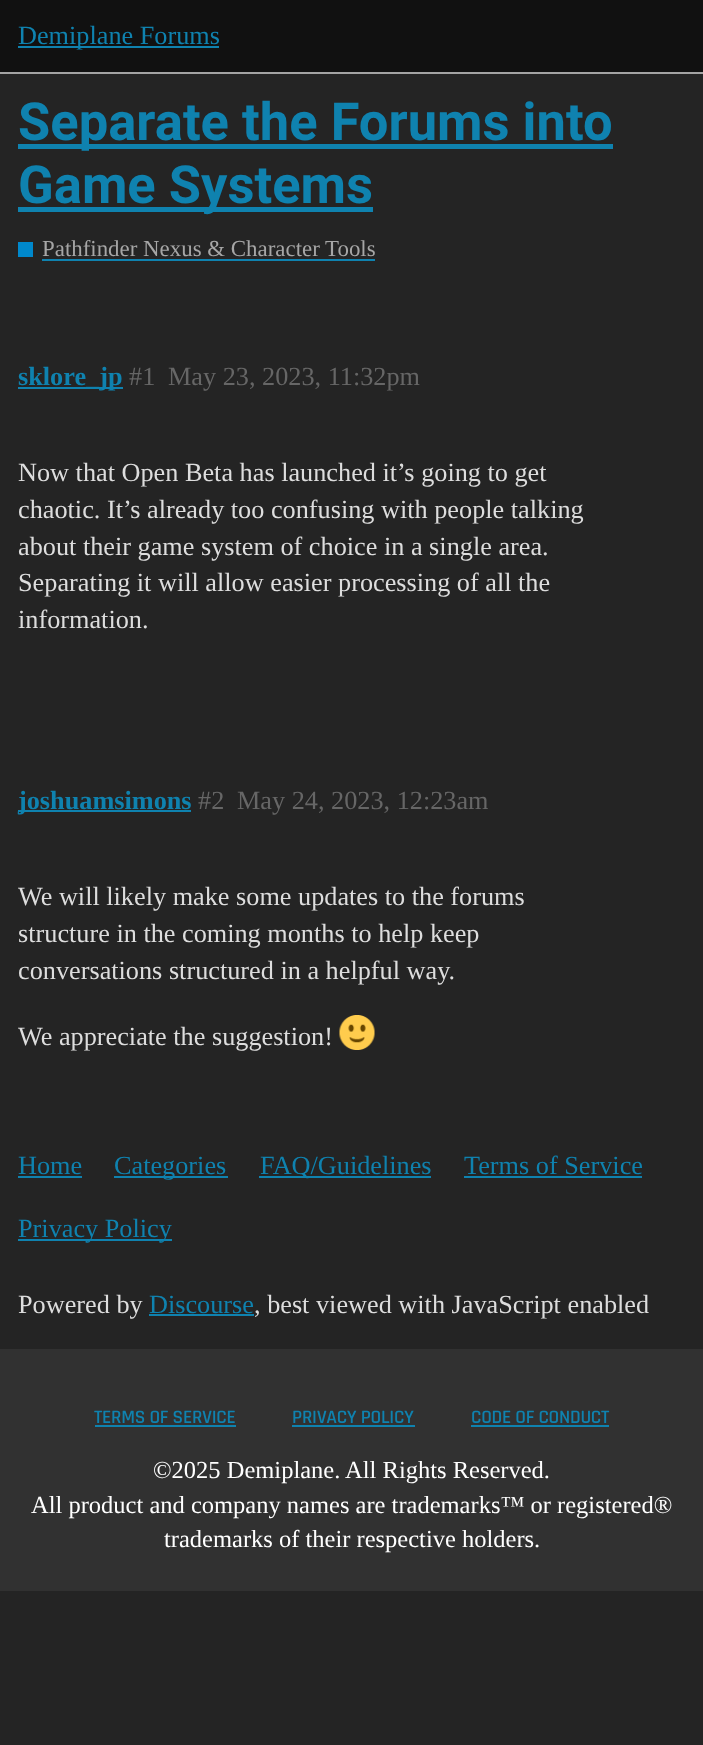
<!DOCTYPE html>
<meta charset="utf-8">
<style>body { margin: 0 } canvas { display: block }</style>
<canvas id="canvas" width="703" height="1745"></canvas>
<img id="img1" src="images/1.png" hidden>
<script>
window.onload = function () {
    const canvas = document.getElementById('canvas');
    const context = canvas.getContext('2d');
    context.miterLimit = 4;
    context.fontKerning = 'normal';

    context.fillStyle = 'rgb(36, 36, 36)';
    context.fillRect(0, 0, 703, 1745);
    context.fillStyle = 'rgb(17, 17, 17)';
    context.fillRect(0, 0, 703, 72);
    context.fillStyle = 'rgb(164, 164, 164)';
    context.fillRect(0, 72, 703, 2);
    context.fillStyle = 'rgb(15, 130, 175)';
    context.fillRect(18, 46, 201, 2);
    context.fillRect(18, 144, 595, 5);
    context.fillRect(18, 207, 355, 5);
    context.fillStyle = 'rgb(0, 136, 204)';
    context.fillRect(18, 242, 15, 15);
    context.fillStyle = 'rgb(15, 130, 175)';
    context.fillRect(42, 259, 333, 2);
    context.fillRect(18, 387, 105, 2);
    context.fillRect(18, 810, 173, 2);
    context.drawImage(document.getElementById('img1'), 339, 1015, 36, 35);
    context.fillRect(18, 1176, 64, 2);
    context.fillRect(114, 1176, 114, 2);
    context.fillRect(259, 1176, 172, 2);
    context.fillRect(464, 1176, 178, 2);
    context.fillRect(18, 1239, 154, 2);
    context.fillRect(149, 1314, 105, 2);
    context.fillStyle = 'rgb(49, 49, 49)';
    context.fillRect(0, 1349, 703, 242);
    context.fillStyle = 'rgb(15, 130, 175)';
    context.fillRect(95, 1425, 141, 2);
    context.fillRect(292, 1425, 123, 2);
    context.fillRect(471, 1425, 138, 2);
    context.font = '26.25px Liberation Serif';
    context.fillText('Demiplane Forums', 18, 44);
    context.font = 'bold 52.5px Roboto';
    context.fillText('Separate the Forums into', 18, 140);
    context.fillText('Game Systems', 18, 203);
    context.font = '22.9px Liberation Serif';
    context.fillStyle = 'rgb(166, 166, 166)';
    context.fillText('Pathfinder Nexus & Character Tools', 42, 256);
    context.font = 'bold 26.25px Liberation Serif';
    context.fillStyle = 'rgb(15, 130, 175)';
    context.fillText('sklore_jp', 18, 385);
    context.font = '26.25px Liberation Serif';
    context.fillStyle = 'rgb(102, 102, 102)';
    context.fillText('#1', 129, 385);
    context.fillText('May 23, 2023, 11:32pm', 168, 385);
    context.fillStyle = 'rgb(221, 221, 221)';
    context.fillText('Now that Open Beta has launched it’s going to get', 18, 481);
    context.fillText('chaotic. It’s already too confusing with people talking', 18, 518);
    context.fillText('about their game system of choice in a single area.', 18, 555);
    context.fillText('Separating it will allow easier processing of all the', 18, 591);
    context.fillText('information.', 18, 628);
    context.font = 'bold 26.25px Liberation Serif';
    context.fillStyle = 'rgb(15, 130, 175)';
    context.fillText('joshuamsimons', 18, 809);
    context.font = '26.25px Liberation Serif';
    context.fillStyle = 'rgb(102, 102, 102)';
    context.fillText('#2', 198, 809);
    context.fillText('May 24, 2023, 12:23am', 237, 809);
    context.fillStyle = 'rgb(221, 221, 221)';
    context.fillText('We will likely make some updates to the forums', 18, 905);
    context.fillText('structure in the coming months to help keep', 18, 942);
    context.fillText('conversations structured in a helpful way.', 18, 979);
    context.fillText('We appreciate the suggestion!', 18, 1045);
    context.fillStyle = 'rgb(15, 130, 175)';
    context.fillText('Home', 18, 1174);
    context.fillText('Categories', 114, 1174);
    context.fillText('FAQ/Guidelines', 260, 1174);
    context.fillText('Terms of Service', 464, 1174);
    context.fillText('Privacy Policy', 18, 1237);
    context.fillStyle = 'rgb(221, 221, 221)';
    context.fillText('Powered by', 18, 1313);
    context.fillStyle = 'rgb(15, 130, 175)';
    context.fillText('Discourse', 149, 1313);
    context.fillStyle = 'rgb(221, 221, 221)';
    context.fillText(', best viewed with JavaScript enabled', 254, 1313);
    context.letterSpacing = '-0.25px';
    context.font = '600 19.25px Rajdhani';
    context.fillStyle = 'rgb(15, 130, 175)';
    context.fillText('TERMS OF SERVICE', 94, 1423);
    context.fillText('PRIVACY POLICY', 292, 1423);
    context.fillText('CODE OF CONDUCT', 471, 1423);
    context.letterSpacing = '0px';
    context.font = '24.5px Liberation Serif';
    context.fillStyle = 'rgb(255, 255, 255)';
    context.fillText('©2025 Demiplane. All Rights Reserved.', 153, 1478);
    context.fillText('All product and company names are trademarks™ or registered®', 31, 1513);
    context.fillText('trademarks of their respective holders.', 164, 1547);
};
</script>
